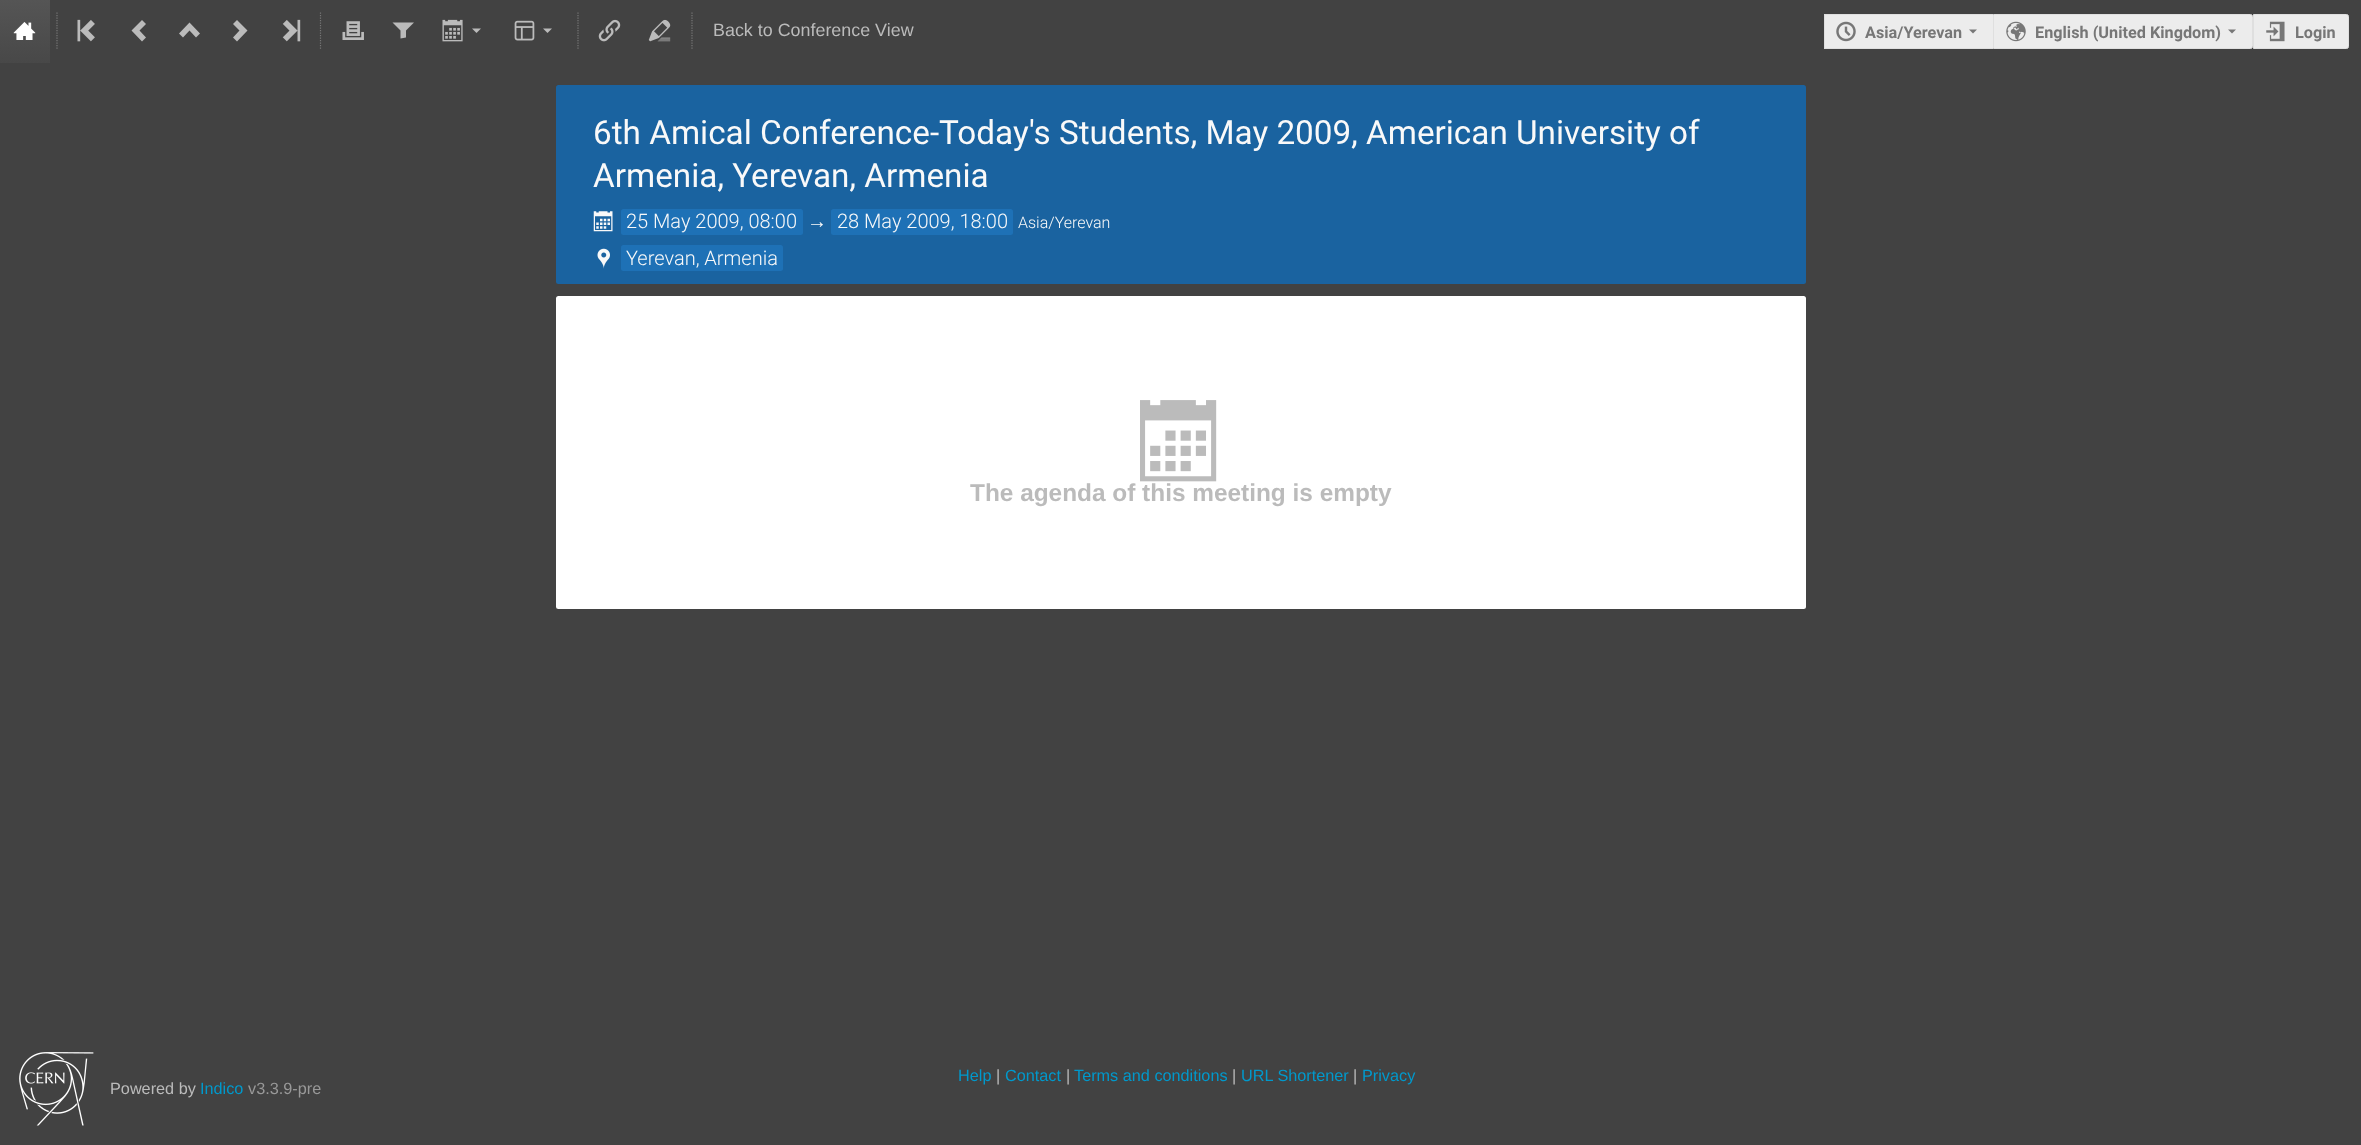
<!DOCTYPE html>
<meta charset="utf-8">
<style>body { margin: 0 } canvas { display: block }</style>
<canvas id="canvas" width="2361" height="1145"></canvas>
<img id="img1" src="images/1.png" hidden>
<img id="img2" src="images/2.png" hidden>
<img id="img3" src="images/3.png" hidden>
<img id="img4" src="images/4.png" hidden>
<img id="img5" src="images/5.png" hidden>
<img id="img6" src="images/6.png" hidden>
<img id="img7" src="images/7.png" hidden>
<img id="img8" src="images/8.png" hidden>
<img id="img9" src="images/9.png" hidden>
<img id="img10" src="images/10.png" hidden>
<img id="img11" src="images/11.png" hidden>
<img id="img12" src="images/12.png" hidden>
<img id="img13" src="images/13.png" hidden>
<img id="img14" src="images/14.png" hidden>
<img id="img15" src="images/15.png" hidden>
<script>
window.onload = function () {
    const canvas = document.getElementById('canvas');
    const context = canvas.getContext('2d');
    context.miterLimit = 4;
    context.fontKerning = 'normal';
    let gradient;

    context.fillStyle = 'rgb(66, 66, 66)';
    context.fillRect(0, 0, 2361, 1145);
    gradient = context.createLinearGradient(25, 0, 25, 63);
    gradient.addColorStop(0, 'rgb(85, 85, 85)');
    gradient.addColorStop(1, 'rgb(72, 72, 72)');
    context.fillStyle = gradient;
    context.fillRect(0, 0, 50, 63);
    context.drawImage(document.getElementById('img1'), 13, 22, 23, 18);
    context.beginPath();
    context.moveTo(57, 12.5);
    context.lineTo(57, 50);
    context.strokeStyle = 'rgb(119, 119, 119)';
    context.lineWidth = 1.2;
    context.setLineDash([1.25, 1.25]);
    context.stroke();
    context.drawImage(document.getElementById('img2'), 77, 19, 18, 23);
    context.fillStyle = 'rgb(187, 187, 187)';
    context.beginPath();
    context.moveTo(142, 41.5);
    context.lineTo(146, 37.5);
    context.lineTo(139.5, 30.5);
    context.lineTo(146, 24);
    context.lineTo(142, 20);
    context.lineTo(131.5, 30.5);
    context.closePath();
    context.fill();
    context.beginPath();
    context.moveTo(179, 33.5);
    context.lineTo(183, 37.5);
    context.lineTo(189.5, 30.5);
    context.lineTo(196, 37.5);
    context.lineTo(200, 33.5);
    context.lineTo(189.5, 22.5);
    context.closePath();
    context.fill();
    context.beginPath();
    context.moveTo(237, 20);
    context.lineTo(233, 24);
    context.lineTo(239.5, 30.5);
    context.lineTo(233, 37.5);
    context.lineTo(237, 41.5);
    context.lineTo(247.5, 30.5);
    context.closePath();
    context.fill();
    context.drawImage(document.getElementById('img3'), 282, 19, 19, 23);
    context.beginPath();
    context.moveTo(320.5, 12.5);
    context.lineTo(320.5, 50);
    context.stroke();
    context.drawImage(document.getElementById('img4'), 342, 21, 22, 19);
    context.beginPath();
    context.moveTo(392.5, 22.5);
    context.lineTo(400.5, 30.5);
    context.lineTo(400.5, 38.5);
    context.lineTo(406, 37.5);
    context.lineTo(406, 30.5);
    context.lineTo(414, 22.5);
    context.closePath();
    context.fill();
    context.drawImage(document.getElementById('img5'), 442, 19, 21, 23);
    context.beginPath();
    context.moveTo(472, 28.5);
    context.lineTo(476.5, 33);
    context.lineTo(481, 28.5);
    context.closePath();
    context.fill();
    context.drawImage(document.getElementById('img6'), 514, 20, 21, 21);
    context.beginPath();
    context.moveTo(543, 28.5);
    context.lineTo(547.5, 33);
    context.lineTo(552, 28.5);
    context.closePath();
    context.fill();
    context.beginPath();
    context.moveTo(578, 12.5);
    context.lineTo(578, 50);
    context.stroke();
    context.drawImage(document.getElementById('img7'), 598, 19, 23, 23);
    context.drawImage(document.getElementById('img8'), 648, 19, 23, 23);
    context.beginPath();
    context.moveTo(692, 12.5);
    context.lineTo(692, 50);
    context.stroke();
    context.fillStyle = 'rgb(236, 236, 236)';
    context.fillRect(1825, 15, 168, 33);
    context.fillStyle = 'rgb(223, 223, 223)';
    context.fillRect(1824, 14, 169, 1);
    context.fillRect(1824, 48, 169, 1);
    context.fillRect(1824, 14, 1, 35);
    context.drawImage(document.getElementById('img9'), 1836, 21, 20, 21);
    context.fillStyle = 'rgb(119, 119, 119)';
    context.beginPath();
    context.moveTo(1969, 29.5);
    context.lineTo(1973, 33.5);
    context.lineTo(1977, 29.5);
    context.closePath();
    context.fill();
    context.fillStyle = 'rgb(236, 236, 236)';
    context.beginPath();
    context.roundRect(1993.5, 14.5, 259, 34, [0, 2, 2, 0]);
    context.fill();
    context.strokeStyle = 'rgb(223, 223, 223)';
    context.lineWidth = 1;
    context.setLineDash([]);
    context.stroke();
    context.drawImage(document.getElementById('img10'), 2006, 21, 20, 21);
    context.fillStyle = 'rgb(119, 119, 119)';
    context.beginPath();
    context.moveTo(2228, 29.5);
    context.lineTo(2232, 33.5);
    context.lineTo(2236, 29.5);
    context.closePath();
    context.fill();
    context.fillStyle = 'rgb(236, 236, 236)';
    context.beginPath();
    context.roundRect(2253.5, 14.5, 95, 34, [0, 2, 2, 0]);
    context.fill();
    context.stroke();
    context.drawImage(document.getElementById('img11'), 2266, 21, 19, 21);
    context.fillStyle = 'rgb(26, 99, 160)';
    context.beginPath();
    context.roundRect(556, 85, 1250, 199, 2.5);
    context.fill();
    context.drawImage(document.getElementById('img12'), 593, 211, 20, 21);
    context.fillStyle = 'rgb(30, 113, 182)';
    context.beginPath();
    context.roundRect(621, 209, 182, 26, 2.5);
    context.fill();
    context.beginPath();
    context.roundRect(831, 209, 182, 26, 2.5);
    context.fill();
    context.drawImage(document.getElementById('img13'), 597, 248, 13, 21);
    context.beginPath();
    context.roundRect(621, 245, 162, 26, 2.5);
    context.fill();
    context.fillStyle = 'rgb(255, 255, 255)';
    context.beginPath();
    context.roundRect(556, 296, 1250, 313, 2.5);
    context.fill();
    context.drawImage(document.getElementById('img14'), 1140, 400, 77, 82);
    context.drawImage(document.getElementById('img15'), 19, 1052, 75, 74);
    context.font = '17.9px Liberation Sans';
    context.fillStyle = 'rgb(187, 187, 187)';
    context.fillText('Back to Conference View', 713, 36);
    context.font = 'bold 16.25px Roboto';
    context.fillStyle = 'rgb(119, 119, 119)';
    context.fillText('Asia/Yerevan', 1865, 38);
    context.fillText('English (United Kingdom)', 2035, 38);
    context.fillText('Login', 2295, 38);
    context.font = '33.3px Roboto';
    context.fillStyle = 'rgb(249, 249, 249)';
    context.fillText('6th Amical Conference-Today\'s Students, May 2009, American University of', 593, 144);
    context.fillText('Armenia, Yerevan, Armenia', 593, 187);
    context.font = '300 20px Roboto';
    context.fillText('25 May 2009, 08:00', 626, 228);
    context.font = '20px "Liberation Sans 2"';
    context.fillText('→', 807, 228);
    context.font = '300 20px Roboto';
    context.fillText('28 May 2009, 18:00', 837, 228);
    context.font = '300 16px Roboto';
    context.fillText('Asia/Yerevan', 1018, 228);
    context.font = '300 20px Roboto';
    context.fillText('Yerevan, Armenia', 626, 265);
    context.font = 'bold 24.4px Liberation Sans';
    context.fillStyle = 'rgb(187, 187, 187)';
    context.fillText('The agenda of this meeting is empty', 970, 501);
    context.font = '16.25px Liberation Sans';
    context.fillStyle = 'rgb(0, 153, 204)';
    context.fillText('Help', 958, 1081);
    context.fillStyle = 'rgb(187, 187, 187)';
    context.fillText('|', 996, 1081);
    context.fillStyle = 'rgb(0, 153, 204)';
    context.fillText('Contact', 1005, 1081);
    context.fillStyle = 'rgb(187, 187, 187)';
    context.fillText('|', 1066, 1081);
    context.fillStyle = 'rgb(0, 153, 204)';
    context.fillText('Terms and conditions', 1074, 1081);
    context.fillStyle = 'rgb(187, 187, 187)';
    context.fillText('|', 1232, 1081);
    context.fillStyle = 'rgb(0, 153, 204)';
    context.fillText('URL Shortener', 1241, 1081);
    context.fillStyle = 'rgb(187, 187, 187)';
    context.fillText('|', 1353, 1081);
    context.fillStyle = 'rgb(0, 153, 204)';
    context.fillText('Privacy', 1362, 1081);
    context.fillStyle = 'rgb(187, 187, 187)';
    context.fillText('Powered by', 110, 1094);
    context.fillStyle = 'rgb(0, 153, 204)';
    context.fillText('Indico', 200, 1094);
    context.fillStyle = 'rgb(153, 153, 153)';
    context.fillText('v3.3.9-pre', 248, 1094);
};
</script>
